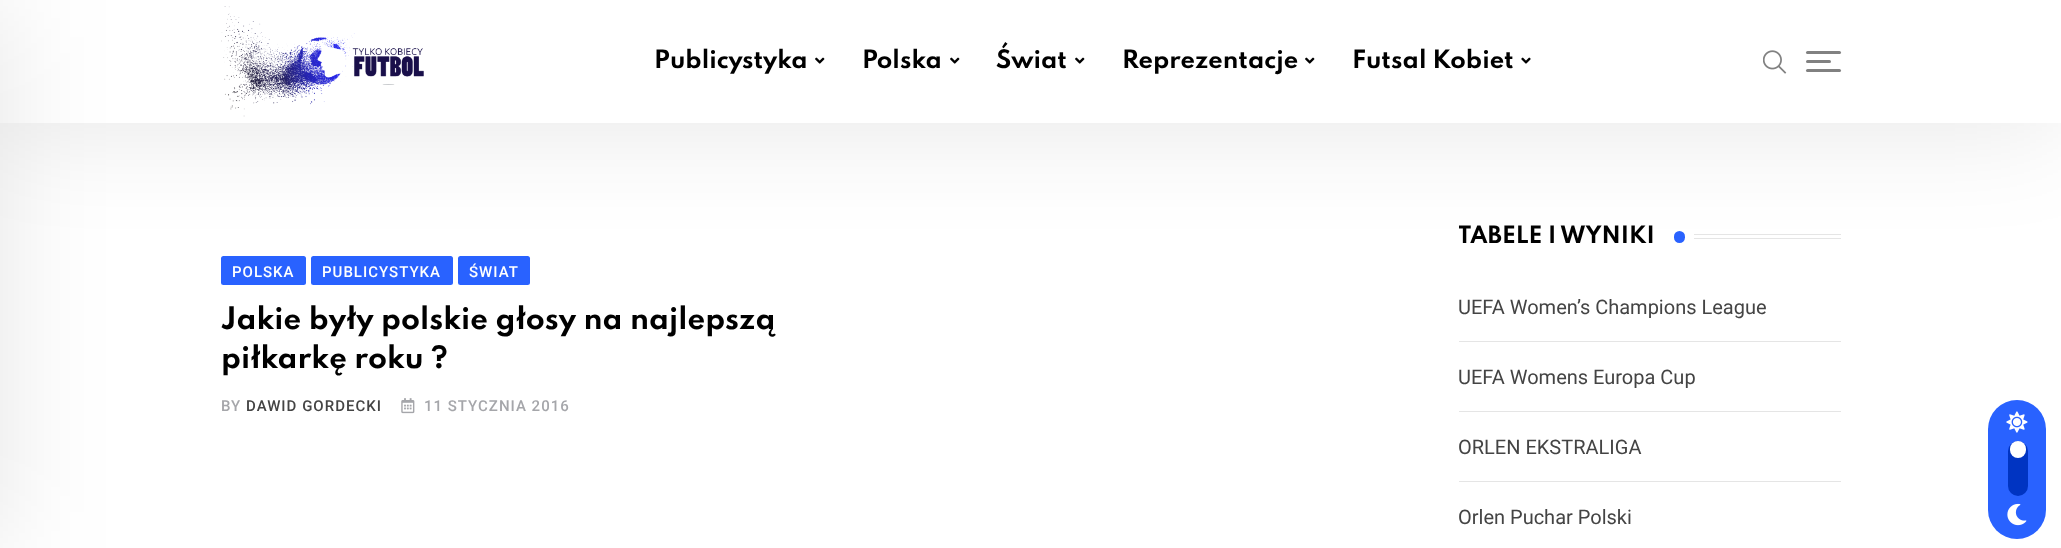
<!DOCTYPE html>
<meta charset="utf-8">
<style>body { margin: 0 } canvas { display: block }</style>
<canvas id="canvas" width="2061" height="548"></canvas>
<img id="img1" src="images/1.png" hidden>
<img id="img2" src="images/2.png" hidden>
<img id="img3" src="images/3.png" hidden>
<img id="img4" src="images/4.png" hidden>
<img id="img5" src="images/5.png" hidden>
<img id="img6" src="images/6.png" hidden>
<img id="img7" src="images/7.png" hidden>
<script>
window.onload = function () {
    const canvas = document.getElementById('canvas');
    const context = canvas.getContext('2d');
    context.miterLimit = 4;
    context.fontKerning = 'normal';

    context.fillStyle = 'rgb(255, 255, 255)';
    context.fillRect(0, 0, 2061, 548);
    context.fillStyle = 'rgb(41, 98, 255)';
    context.beginPath();
    context.roundRect(221, 256, 85, 29, 2.5);
    context.fill();
    context.beginPath();
    context.roundRect(311, 256, 142, 29, 2.5);
    context.fill();
    context.beginPath();
    context.roundRect(458, 256, 72, 29, 2.5);
    context.fill();
    context.beginPath();
    context.roundRect(1674, 231, 11, 12, 5.5);
    context.fill();
    context.fillStyle = 'rgb(229, 229, 229)';
    context.fillRect(1694, 234, 147, 1);
    context.fillRect(1694, 238, 147, 1);
    context.fillStyle = 'rgba(0, 0, 0, 0.1)';
    context.filter = 'blur(56px)';
    context.beginPath();
    context.rect(0, 0, 2061, 123);
    context.fill();
    context.filter = 'none';
    context.fillStyle = 'rgb(255, 255, 255)';
    context.fillRect(0, 0, 2061, 123);
    context.fillStyle = 'rgba(0, 0, 0, 0.1)';
    context.filter = 'blur(56px)';
    context.beginPath();
    context.rect(-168, 0, 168, 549);
    context.fill();
    context.filter = 'none';
    context.fillStyle = 'rgb(129, 129, 129)';
    context.beginPath();
    context.roundRect(1806, 51, 35, 3, 1.5);
    context.fill();
    context.beginPath();
    context.roundRect(1806, 60, 25, 3, 1.5);
    context.fill();
    context.beginPath();
    context.roundRect(1806, 69, 35, 3, 1.5);
    context.fill();
    context.drawImage(document.getElementById('img1'), 1763, 50, 24, 24);
    context.drawImage(document.getElementById('img2'), 221, 6, 203, 111);
    context.drawImage(document.getElementById('img3'), 815, 57, 10, 7);
    context.drawImage(document.getElementById('img3'), 950, 57, 10, 7);
    context.drawImage(document.getElementById('img3'), 1075, 57, 10, 7);
    context.drawImage(document.getElementById('img3'), 1305, 57, 10, 7);
    context.drawImage(document.getElementById('img4'), 1521, 57, 10, 7);
    context.drawImage(document.getElementById('img5'), 401, 398, 14, 16);
    context.fillStyle = 'rgb(229, 229, 229)';
    context.fillRect(1459, 341, 382, 1);
    context.fillRect(1459, 411, 382, 1);
    context.fillRect(1459, 481, 382, 1);
    context.fillStyle = 'rgb(41, 98, 255)';
    context.beginPath();
    context.roundRect(1988, 400, 58, 139, 29);
    context.fill();
    context.drawImage(document.getElementById('img6'), 2006, 411, 22, 22);
    context.fillStyle = 'rgb(0, 52, 194)';
    context.beginPath();
    context.roundRect(2008, 441, 20, 55, 10);
    context.fill();
    context.fillStyle = 'rgb(255, 255, 255)';
    context.beginPath();
    context.roundRect(2010, 441, 16, 17, 8);
    context.fill();
    context.drawImage(document.getElementById('img7'), 2007, 503, 20, 23);
    context.font = 'bold 22.5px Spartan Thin';
    context.fillStyle = 'rgb(0, 0, 0)';
    context.fillText('Publicystyka', 654, 68);
    context.fillText('Polska', 862, 68);
    context.fillText('Świat', 996, 68);
    context.fillText('Reprezentacje', 1122, 68);
    context.fillText('Futsal Kobiet', 1352, 68);
    context.letterSpacing = '1px';
    context.font = '500 15px Roboto';
    context.fillStyle = 'rgb(255, 255, 255)';
    context.fillText('POLSKA', 232, 277);
    context.fillText('PUBLICYSTYKA', 322, 277);
    context.fillText('ŚWIAT', 469, 277);
    context.letterSpacing = '0px';
    context.font = 'bold 27.5px Spartan Thin';
    context.fillStyle = 'rgb(0, 0, 0)';
    context.fillText('Jakie były polskie głosy na najlepszą', 221, 329);
    context.fillText('piłkarkę roku ?', 221, 368);
    context.letterSpacing = '1px';
    context.font = '500 15px Roboto';
    context.fillStyle = 'rgb(165, 166, 170)';
    context.fillText('BY', 221, 411);
    context.fillStyle = 'rgb(68, 68, 68)';
    context.fillText('DAWID GORDECKI', 246, 411);
    context.fillStyle = 'rgb(165, 166, 170)';
    context.fillText('11 STYCZNIA 2016', 424, 411);
    context.save();
    context.beginPath();
    context.rect(1459, 221, 382, 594);
    context.clip();
    context.letterSpacing = '0px';
    context.font = 'bold 21.25px Spartan Thin';
    context.fillStyle = 'rgb(0, 0, 0)';
    context.fillText('TABELE I WYNIKI', 1458, 243);
    context.restore();
    context.letterSpacing = '0px';
    context.font = '20px Roboto';
    context.fillStyle = 'rgb(68, 68, 68)';
    context.fillText('UEFA Women’s Champions League', 1458, 314);
    context.fillText('UEFA Womens Europa Cup', 1458, 384);
    context.fillText('ORLEN EKSTRALIGA', 1458, 454);
    context.fillText('Orlen Puchar Polski', 1458, 524);
};
</script>
